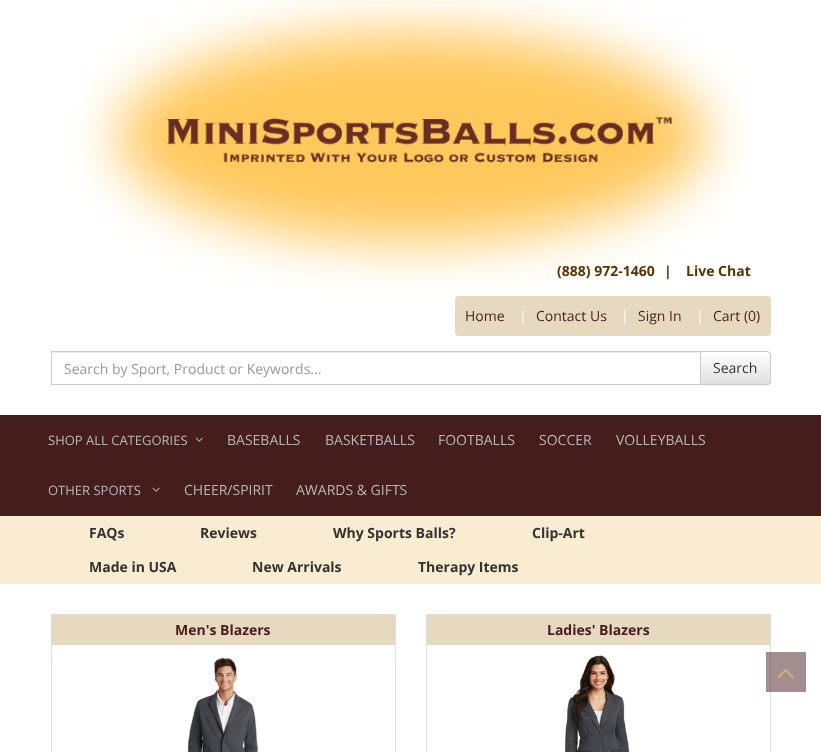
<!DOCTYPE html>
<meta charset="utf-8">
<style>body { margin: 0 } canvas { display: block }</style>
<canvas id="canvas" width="821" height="752"></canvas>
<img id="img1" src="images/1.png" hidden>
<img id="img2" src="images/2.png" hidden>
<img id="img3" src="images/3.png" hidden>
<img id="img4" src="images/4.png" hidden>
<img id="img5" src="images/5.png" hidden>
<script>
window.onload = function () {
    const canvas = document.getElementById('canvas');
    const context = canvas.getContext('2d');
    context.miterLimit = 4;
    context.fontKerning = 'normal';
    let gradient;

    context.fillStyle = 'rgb(255, 255, 255)';
    context.fillRect(0, 0, 821, 752);
    context.drawImage(document.getElementById('img1'), 74, 0, 676, 291);
    context.fillStyle = 'rgb(231, 217, 191)';
    context.beginPath();
    context.roundRect(455, 296, 316, 40, 4);
    context.fill();
    context.fillStyle = 'rgb(236, 236, 236)';
    context.fillRect(52, 352, 648, 1);
    context.strokeStyle = 'rgb(204, 204, 204)';
    context.strokeRect(51.5, 351.5, 649, 33);
    context.fillStyle = 'rgba(0, 0, 0, 0.07)';
    context.filter = 'blur(0.5px)';
    context.beginPath();
    context.roundRect(700, 352, 71, 34, 4);
    context.fill();
    context.filter = 'none';
    context.save();
    context.beginPath();
    context.roundRect(700, 351, 71, 34, [0, 4, 4, 0]);
    context.clip();
    gradient = context.createLinearGradient(736, 352, 736, 384);
    gradient.addColorStop(0, 'rgb(255, 255, 255)');
    gradient.addColorStop(1, 'rgb(224, 224, 224)');
    context.fillStyle = gradient;
    context.fillRect(701, 352, 70, 32);
    context.restore();
    context.beginPath();
    context.roundRect(700.5, 351.5, 70, 33, [0, 3.5, 3.5, 0]);
    context.stroke();
    context.fillStyle = 'rgb(70, 29, 29)';
    context.fillRect(0, 415, 821, 101);
    context.drawImage(document.getElementById('img2'), 195, 437, 8, 5);
    context.drawImage(document.getElementById('img2'), 152, 487, 8, 5);
    context.fillStyle = 'rgb(249, 236, 209)';
    context.fillRect(0, 516, 821, 68);
    context.strokeStyle = 'rgb(221, 221, 221)';
    context.strokeRect(51.5, 614.5, 344, 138);
    context.fillStyle = 'rgb(231, 217, 191)';
    context.fillRect(52, 615, 343, 30);
    context.drawImage(document.getElementById('img3'), 187, 657, 72, 95);
    context.strokeRect(426.5, 614.5, 344, 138);
    context.fillRect(427, 615, 343, 30);
    context.drawImage(document.getElementById('img4'), 565, 655, 65, 97);
    context.fillStyle = 'rgba(70, 29, 29, 0.5)';
    context.fillRect(766, 652, 40, 40);
    context.drawImage(document.getElementById('img5'), 777, 668, 17, 11);
    context.font = 'bold 14px Open Sans';
    context.fillStyle = 'rgb(90, 51, 0)';
    context.fillText('(888) 972-1460', 557, 276);
    context.fillText('|', 664, 276);
    context.fillText('Live Chat', 686, 276);
    context.font = '14px Open Sans';
    context.fillStyle = 'rgb(70, 29, 29)';
    context.fillText('Home', 465, 321);
    context.fillStyle = 'rgb(255, 255, 255)';
    context.fillText('|', 519, 321);
    context.fillStyle = 'rgb(70, 29, 29)';
    context.fillText('Contact Us', 536, 321);
    context.fillStyle = 'rgb(255, 255, 255)';
    context.fillText('|', 621, 321);
    context.fillStyle = 'rgb(70, 29, 29)';
    context.fillText('Sign In', 638, 321);
    context.fillStyle = 'rgb(255, 255, 255)';
    context.fillText('|', 696, 321);
    context.fillStyle = 'rgb(70, 29, 29)';
    context.fillText('Cart (0)', 713, 321);
    context.fillStyle = 'rgb(153, 153, 153)';
    context.fillText('Search by Sport, Product or Keywords...', 64, 374);
    context.fillStyle = 'rgb(51, 51, 51)';
    context.fillText('Search', 713, 373);
    context.font = '13px Open Sans';
    context.fillStyle = 'rgb(183, 183, 183)';
    context.fillText('SHOP ALL CATEGORIES', 48, 445);
    context.font = '14px Open Sans';
    context.fillText('BASEBALLS', 227, 445);
    context.fillText('BASKETBALLS', 325, 445);
    context.fillText('FOOTBALLS', 438, 445);
    context.fillText('SOCCER', 539, 445);
    context.fillText('VOLLEYBALLS', 616, 445);
    context.font = '13px Open Sans';
    context.fillText('OTHER SPORTS', 48, 495);
    context.font = '14px Open Sans';
    context.fillText('CHEER/SPIRIT', 184, 495);
    context.fillText('AWARDS & GIFTS', 296, 495);
    context.font = 'bold 14px Open Sans';
    context.fillStyle = 'rgb(51, 51, 51)';
    context.fillText('FAQs', 89, 538);
    context.fillText('Reviews', 200, 538);
    context.fillText('Why Sports Balls?', 333, 538);
    context.fillText('Clip-Art', 532, 538);
    context.fillText('Made in USA', 89, 572);
    context.fillText('New Arrivals', 252, 572);
    context.fillText('Therapy Items', 418, 572);
    context.fillStyle = 'rgb(70, 29, 29)';
    context.fillText('Men\'s Blazers', 175, 635);
    context.fillText('Ladies\' Blazers', 547, 635);
};
</script>
